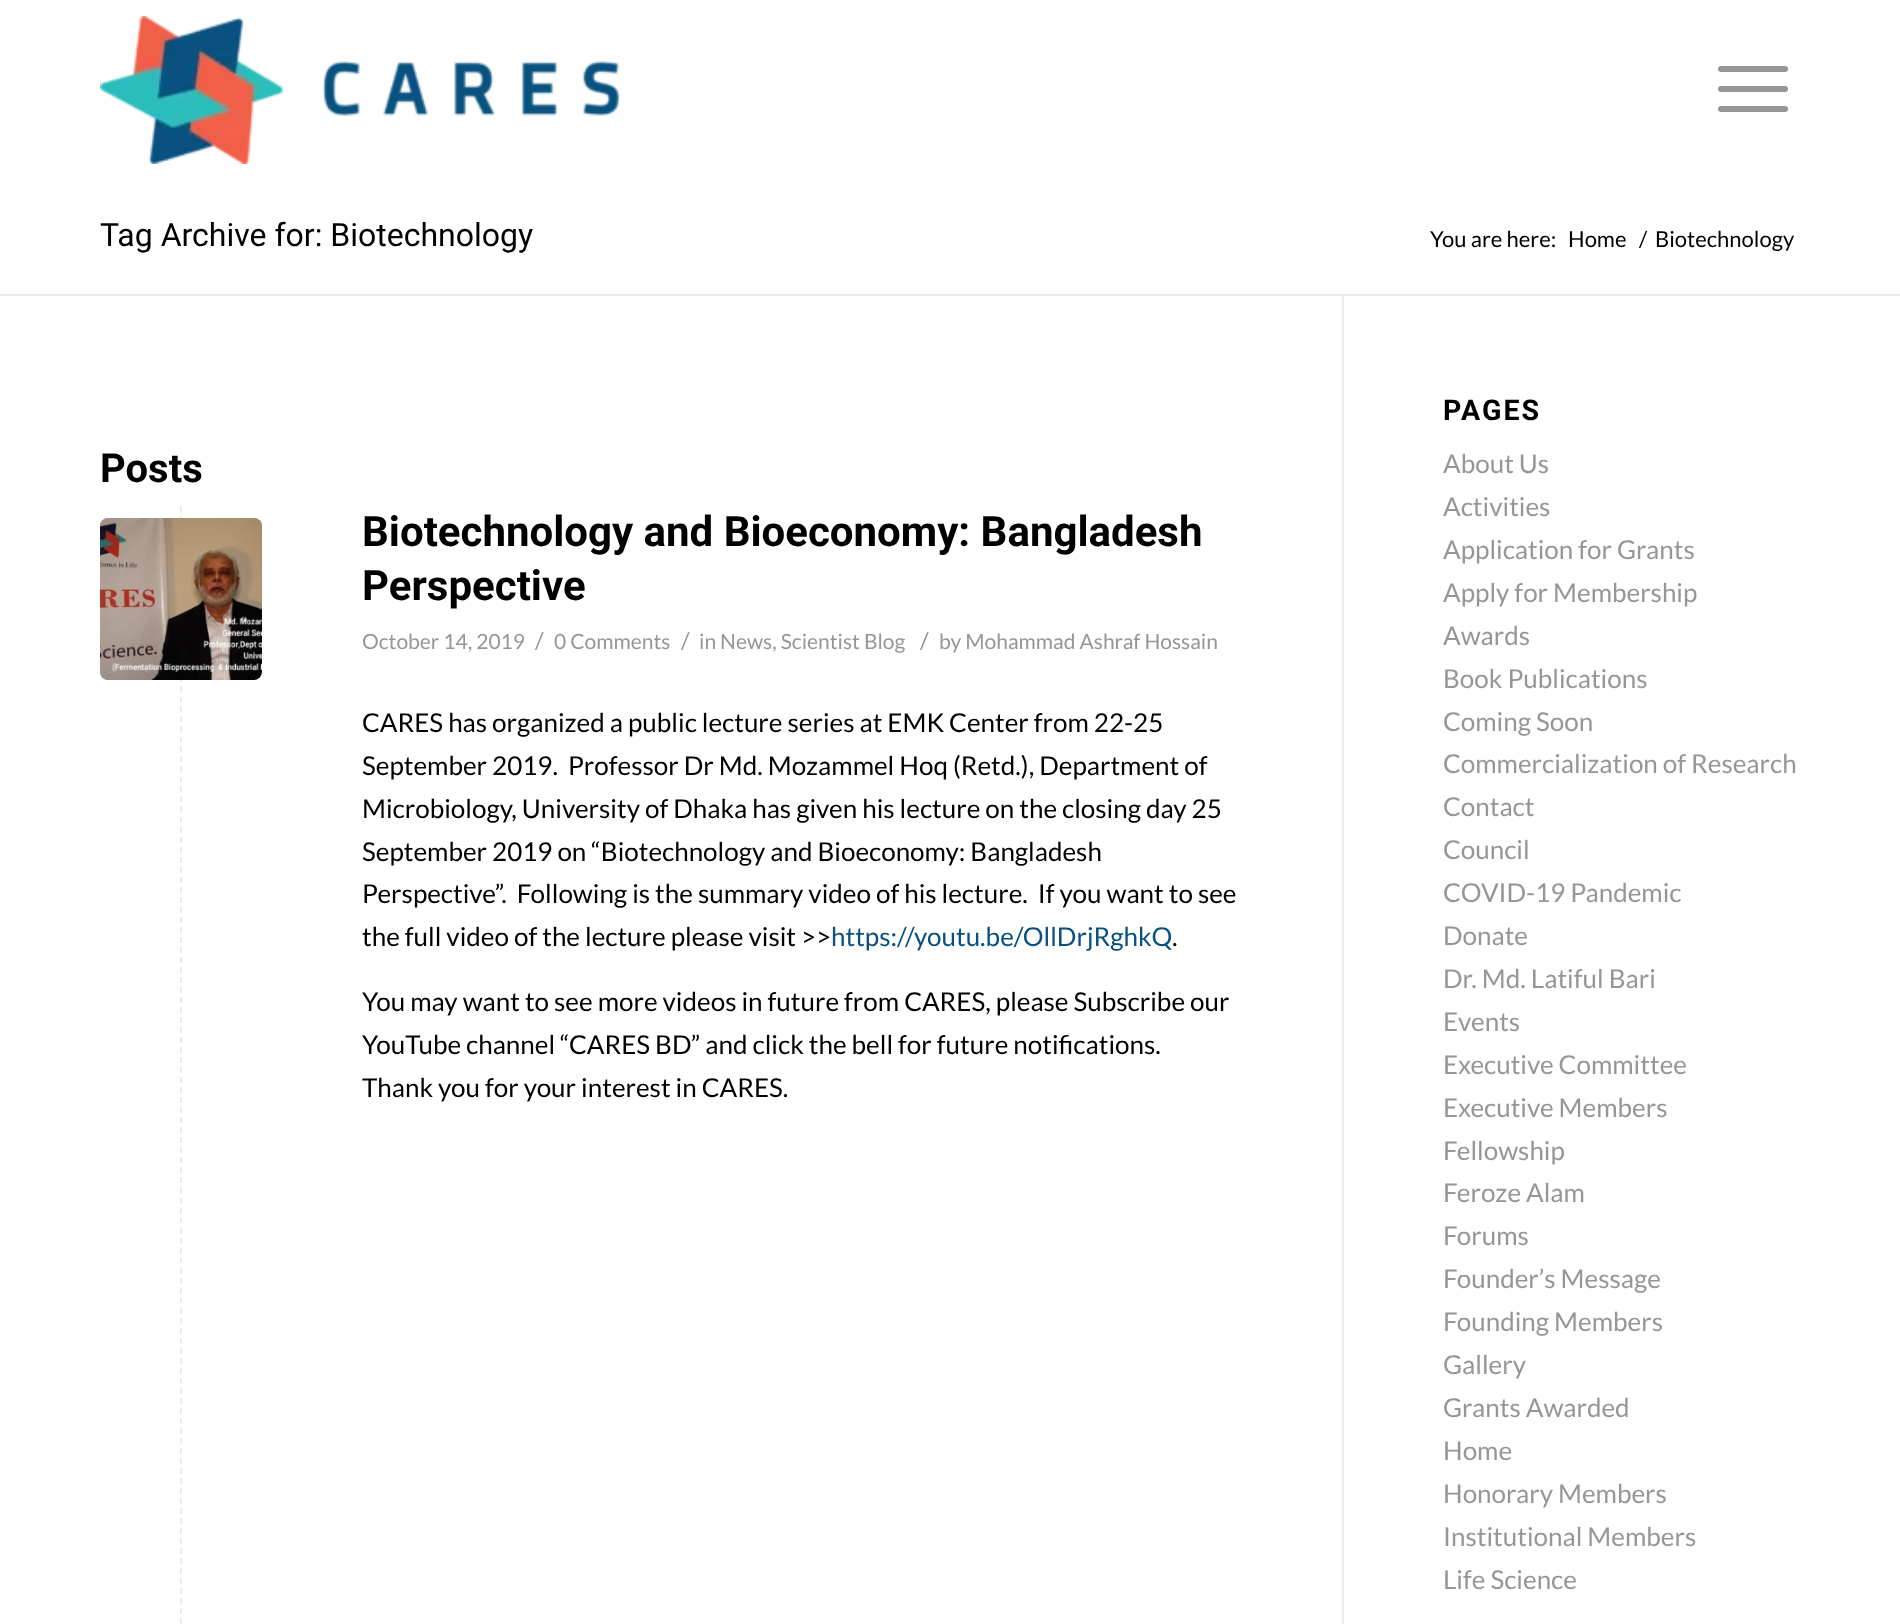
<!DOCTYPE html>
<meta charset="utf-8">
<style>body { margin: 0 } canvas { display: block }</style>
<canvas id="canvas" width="1900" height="1624"></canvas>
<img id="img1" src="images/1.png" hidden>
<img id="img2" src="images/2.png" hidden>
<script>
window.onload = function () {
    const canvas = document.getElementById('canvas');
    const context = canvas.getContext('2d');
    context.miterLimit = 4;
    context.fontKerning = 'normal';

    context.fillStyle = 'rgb(255, 255, 255)';
    context.fillRect(0, 0, 1900, 1624);
    context.drawImage(document.getElementById('img1'), 100, 16, 520, 148);
    context.fillStyle = 'rgb(150, 150, 150)';
    context.beginPath();
    context.roundRect(1718, 86, 70, 6, 3);
    context.fill();
    context.beginPath();
    context.roundRect(1718, 66, 70, 6, 3);
    context.fill();
    context.beginPath();
    context.roundRect(1718, 106, 70, 6, 3);
    context.fill();
    context.fillStyle = 'rgb(235, 235, 235)';
    context.fillRect(0, 294, 1900, 2);
    context.fillRect(1342, 296, 2, 1328);
    context.beginPath();
    context.moveTo(181, 506);
    context.lineTo(181, 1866);
    context.strokeStyle = 'rgb(235, 235, 235)';
    context.lineWidth = 2;
    context.setLineDash([6, 4.02]);
    context.stroke();
    context.fillStyle = 'rgb(150, 150, 150)';
    context.beginPath();
    context.roundRect(100, 518, 162, 162, 8);
    context.fill();
    context.drawImage(document.getElementById('img2'), 100, 518, 162, 162);
    context.font = '32px Roboto';
    context.fillStyle = 'rgb(0, 0, 0)';
    context.fillText('Tag Archive for: Biotechnology', 100, 246);
    context.font = '22px Lato';
    context.fillText('You are here:', 1430, 247);
    context.fillText('Home', 1568, 247);
    context.fillText('/', 1639, 247);
    context.fillText('Biotechnology', 1655, 247);
    context.font = 'bold 40px Roboto';
    context.fillText('Posts', 100, 482);
    context.font = 'bold 42px Roboto';
    context.fillText('Biotechnology and Bioeconomy: Bangladesh', 362, 546);
    context.fillText('Perspective', 362, 600);
    context.font = '21px Lato';
    context.fillStyle = 'rgb(150, 150, 150)';
    context.fillText('October 14, 2019', 362, 649);
    context.font = '23px Lato';
    context.fillText('/', 535, 649);
    context.font = '21px Lato';
    context.fillText('0 Comments', 554, 649);
    context.font = '23px Lato';
    context.fillText('/', 681, 649);
    context.font = '21px Lato';
    context.fillText('in News, Scientist Blog', 699, 649);
    context.font = '23px Lato';
    context.fillText('/', 920, 649);
    context.font = '21px Lato';
    context.fillText('by Mohammad Ashraf Hossain', 939, 649);
    context.font = '26px Lato';
    context.fillStyle = 'rgb(0, 0, 0)';
    context.fillText('CARES has organized a public lecture series at EMK Center from 22-25', 362, 732);
    context.fillText('September 2019.  Professor Dr Md. Mozammel Hoq (Retd.), Department of', 362, 775);
    context.fillText('Microbiology, University of Dhaka has given his lecture on the closing day 25', 362, 818);
    context.fillText('September 2019 on “Biotechnology and Bioeconomy: Bangladesh', 362, 861);
    context.fillText('Perspective”.  Following is the summary video of his lecture.  If you want to see', 362, 903);
    context.fillText('the full video of the lecture please visit >>', 362, 946);
    context.fillStyle = 'rgb(9, 80, 128)';
    context.fillText('https://youtu.be/OllDrjRghkQ', 831, 946);
    context.fillStyle = 'rgb(0, 0, 0)';
    context.fillText('.', 1172, 946);
    context.fillText('You may want to see more videos in future from CARES, please Subscribe our', 362, 1011);
    context.fillText('YouTube channel “CARES BD” and click the bell for future notifications.', 362, 1054);
    context.fillText('Thank you for your interest in CARES.', 362, 1097);
    context.letterSpacing = '2px';
    context.font = 'bold 28.5px Roboto';
    context.fillText('PAGES', 1443, 420);
    context.letterSpacing = '0px';
    context.font = '26px Lato';
    context.fillStyle = 'rgb(150, 150, 150)';
    context.fillText('About Us', 1443, 473);
    context.fillText('Activities', 1443, 516);
    context.fillText('Application for Grants', 1443, 559);
    context.fillText('Apply for Membership', 1443, 602);
    context.fillText('Awards', 1443, 645);
    context.fillText('Book Publications', 1443, 688);
    context.fillText('Coming Soon', 1443, 731);
    context.fillText('Commercialization of Research', 1443, 773);
    context.fillText('Contact', 1443, 816);
    context.fillText('Council', 1443, 859);
    context.fillText('COVID-19 Pandemic', 1443, 902);
    context.fillText('Donate', 1443, 945);
    context.fillText('Dr. Md. Latiful Bari', 1443, 988);
    context.fillText('Events', 1443, 1031);
    context.fillText('Executive Committee', 1443, 1074);
    context.fillText('Executive Members', 1443, 1117);
    context.fillText('Fellowship', 1443, 1160);
    context.fillText('Feroze Alam', 1443, 1202);
    context.fillText('Forums', 1443, 1245);
    context.fillText('Founder’s Message', 1443, 1288);
    context.fillText('Founding Members', 1443, 1331);
    context.fillText('Gallery', 1443, 1374);
    context.fillText('Grants Awarded', 1443, 1417);
    context.fillText('Home', 1443, 1460);
    context.fillText('Honorary Members', 1443, 1503);
    context.fillText('Institutional Members', 1443, 1546);
    context.fillText('Life Science', 1443, 1589);
};
</script>
